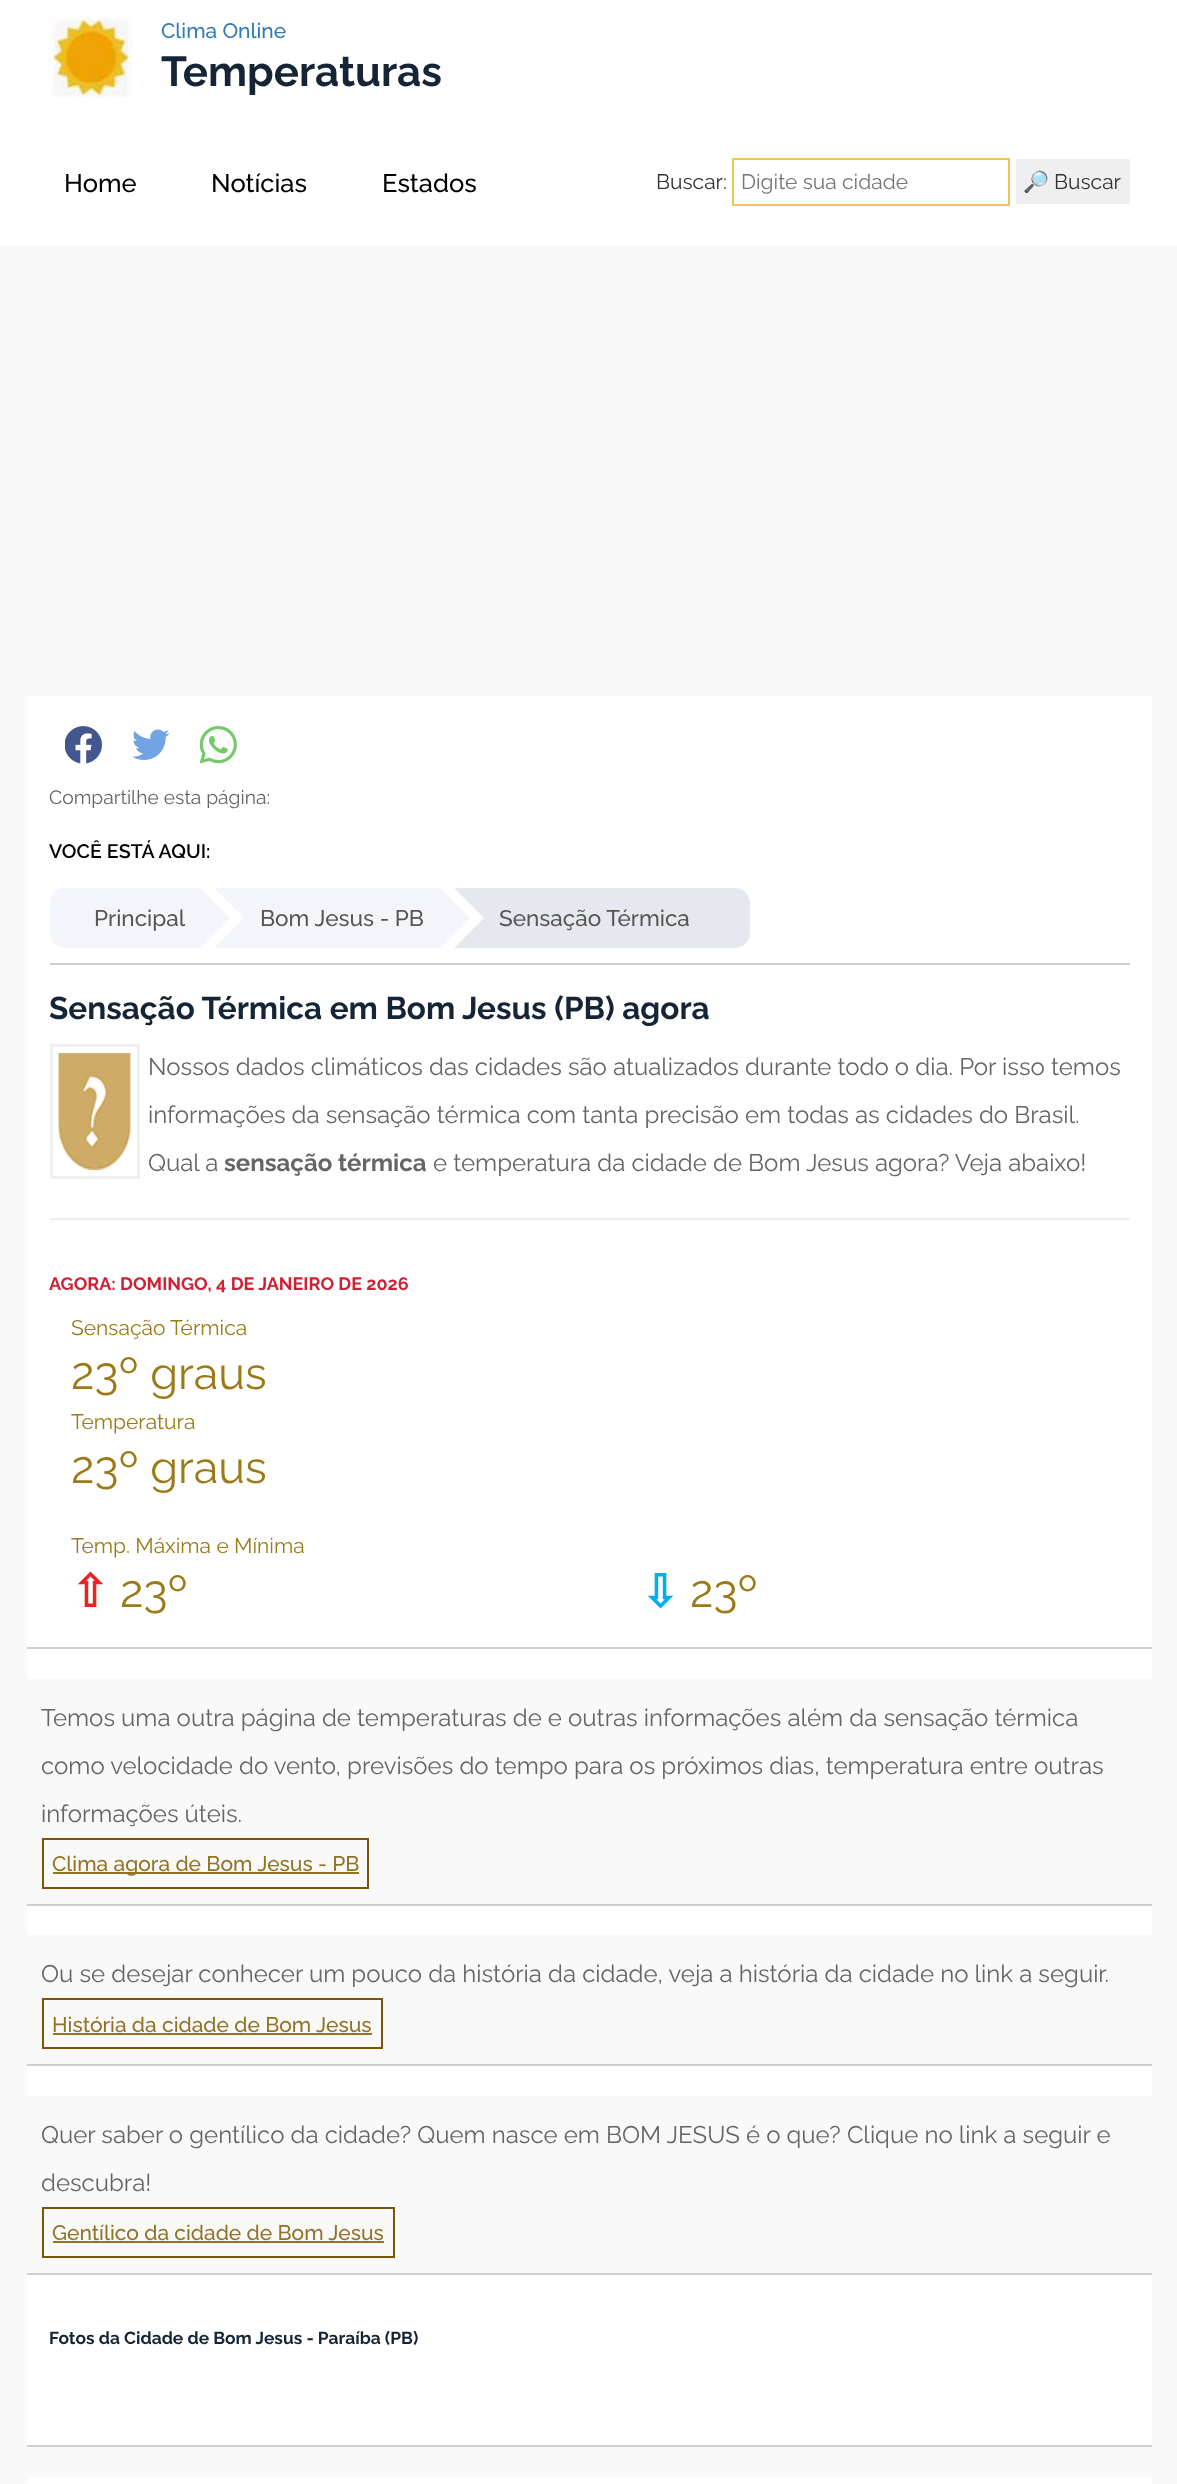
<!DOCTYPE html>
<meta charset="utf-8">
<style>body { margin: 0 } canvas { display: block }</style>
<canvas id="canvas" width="1177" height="2484"></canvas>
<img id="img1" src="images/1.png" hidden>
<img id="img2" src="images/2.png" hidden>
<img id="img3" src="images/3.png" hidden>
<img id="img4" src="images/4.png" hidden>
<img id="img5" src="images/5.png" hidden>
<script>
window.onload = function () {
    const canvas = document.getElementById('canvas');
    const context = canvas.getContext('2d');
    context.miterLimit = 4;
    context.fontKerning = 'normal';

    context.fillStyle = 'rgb(255, 255, 255)';
    context.fillRect(0, 0, 1177, 2484);
    context.drawImage(document.getElementById('img1'), 49, 15, 83, 83);
    context.strokeStyle = 'rgb(240, 197, 87)';
    context.lineWidth = 2;
    context.strokeRect(733, 159, 276, 46);
    context.fillStyle = 'rgb(239, 239, 239)';
    context.fillRect(1016, 159, 114, 45);
    context.fillStyle = 'rgb(249, 249, 249)';
    context.fillRect(0, 246, 1177, 2238);
    context.fillStyle = 'rgb(255, 255, 255)';
    context.fillRect(27, 696, 1125, 1749);
    context.drawImage(document.getElementById('img2'), 65, 726, 37, 38);
    context.drawImage(document.getElementById('img3'), 132, 729, 38, 31);
    context.drawImage(document.getElementById('img4'), 200, 726, 37, 38);
    context.fillStyle = 'rgb(206, 206, 206)';
    context.fillRect(50, 963, 1080, 2);
    context.fillStyle = 'rgb(243, 245, 250)';
    context.beginPath();
    context.roundRect(50, 888, 150, 60, [15, 0, 0, 15]);
    context.fill();
    context.fillRect(215, 888, 225, 60);
    context.fillStyle = 'rgb(255, 255, 255)';
    context.beginPath();
    context.moveTo(214, 948);
    context.lineTo(214, 888);
    context.lineTo(244, 918);
    context.closePath();
    context.fill();
    context.fillStyle = 'rgb(243, 245, 250)';
    context.beginPath();
    context.moveTo(200, 948);
    context.lineTo(200, 888);
    context.lineTo(230, 918);
    context.closePath();
    context.fill();
    context.fillStyle = 'rgb(230, 232, 239)';
    context.beginPath();
    context.roundRect(455, 888, 295, 60, [0, 15, 15, 0]);
    context.fill();
    context.fillStyle = 'rgb(255, 255, 255)';
    context.beginPath();
    context.moveTo(454, 948);
    context.lineTo(454, 888);
    context.lineTo(484, 918);
    context.closePath();
    context.fill();
    context.fillStyle = 'rgb(243, 245, 250)';
    context.beginPath();
    context.moveTo(440, 948);
    context.lineTo(440, 888);
    context.lineTo(470, 918);
    context.closePath();
    context.fill();
    context.strokeStyle = 'rgb(240, 240, 240)';
    context.lineWidth = 3;
    context.strokeRect(51.5, 1045.5, 87, 132);
    context.drawImage(document.getElementById('img5'), 58, 1053, 73, 117);
    context.fillStyle = 'rgb(238, 238, 238)';
    context.fillRect(50, 1218, 1080, 2);
    context.fillStyle = 'rgb(206, 206, 206)';
    context.fillRect(27, 1647, 1125, 2);
    context.fillStyle = 'rgb(249, 249, 249)';
    context.fillRect(27, 1679, 1125, 225);
    context.fillStyle = 'rgb(206, 206, 206)';
    context.fillRect(27, 1904, 1125, 2);
    context.strokeStyle = 'rgb(122, 84, 10)';
    context.lineWidth = 2;
    context.strokeRect(43, 1839, 325, 49);
    context.fillStyle = 'rgb(147, 114, 35)';
    context.fillRect(53, 1872, 306, 2);
    context.fillStyle = 'rgb(249, 249, 249)';
    context.fillRect(27, 1935, 1125, 129);
    context.fillStyle = 'rgb(206, 206, 206)';
    context.fillRect(27, 2064, 1125, 2);
    context.strokeRect(43, 1999, 339, 49);
    context.fillStyle = 'rgb(147, 114, 35)';
    context.fillRect(53, 2033, 319, 2);
    context.fillStyle = 'rgb(249, 249, 249)';
    context.fillRect(27, 2096, 1125, 177);
    context.fillStyle = 'rgb(206, 206, 206)';
    context.fillRect(27, 2273, 1125, 2);
    context.strokeRect(43, 2208, 351, 49);
    context.fillStyle = 'rgb(147, 114, 35)';
    context.fillRect(53, 2241, 331, 2);
    context.fillStyle = 'rgb(206, 206, 206)';
    context.fillRect(27, 2445, 1125, 2);
    context.fillStyle = 'rgb(255, 255, 255)';
    context.fillRect(27, 2477, 1125, 7);
    context.font = '500 21px Raleway';
    context.fillStyle = 'rgb(51, 122, 183)';
    context.fillText('Clima Online', 161, 38);
    context.font = 'bold 42px Raleway';
    context.fillStyle = 'rgb(21, 37, 53)';
    context.fillText('Temperaturas', 161, 86);
    context.font = '500 25.5px Raleway';
    context.fillStyle = 'rgb(0, 0, 0)';
    context.fillText('Home', 64, 192);
    context.fillText('Notícias', 211, 192);
    context.fillText('Estados', 382, 192);
    context.font = '21px Raleway';
    context.fillStyle = 'rgb(51, 51, 51)';
    context.fillText('Buscar:', 656, 189);
    context.fillStyle = 'rgb(117, 117, 117)';
    context.fillText('Digite sua cidade', 741, 189);
    context.font = '21px Noto Color Emoji';
    context.fillStyle = 'rgb(51, 51, 51)';
    context.fillText('🔎', 1023, 189);
    context.font = '21px Raleway';
    context.fillText('Buscar', 1054, 189);
    context.font = '19.25px Raleway';
    context.fillStyle = 'rgb(101, 101, 101)';
    context.fillText('Compartilhe esta página:', 49, 804);
    context.letterSpacing = '0.1px';
    context.font = '600 19.5px Raleway';
    context.fillStyle = 'rgb(0, 0, 0)';
    context.fillText('VOCÊ ESTÁ AQUI:', 49, 858);
    context.letterSpacing = '0px';
    context.font = '500 22.5px Raleway';
    context.fillStyle = 'rgb(88, 86, 84)';
    context.fillText('Principal', 94, 926);
    context.fillText('Bom Jesus - PB', 260, 926);
    context.fillText('Sensação Térmica', 499, 926);
    context.font = 'bold 31.5px Raleway';
    context.fillStyle = 'rgb(21, 37, 53)';
    context.fillText('Sensação Térmica em Bom Jesus (PB) agora', 49, 1019);
    context.font = '24px Raleway';
    context.fillStyle = 'rgb(101, 101, 101)';
    context.fillText('Nossos dados climáticos das cidades são atualizados durante todo o dia. Por isso temos', 148, 1075);
    context.fillText('informações da sensação térmica com tanta precisão em todas as cidades do Brasil.', 148, 1123);
    context.fillText('Qual a', 148, 1171);
    context.font = 'bold 24px Raleway';
    context.fillText('sensação térmica', 224, 1171);
    context.font = '24px Raleway';
    context.fillText('e temperatura da cidade de Bom Jesus agora? Veja abaixo!', 433, 1171);
    context.font = 'bold 18px Raleway';
    context.fillStyle = 'rgb(208, 32, 53)';
    context.fillText('AGORA: DOMINGO, 4 DE JANEIRO DE 2026', 49, 1290);
    context.font = '21px Raleway';
    context.fillStyle = 'rgb(155, 122, 23)';
    context.fillText('Sensação Térmica', 71, 1335);
    context.font = '45px Raleway';
    context.fillText('23º graus', 71, 1389);
    context.font = '21px Raleway';
    context.fillText('Temperatura', 71, 1429);
    context.font = '45px Raleway';
    context.fillText('23º graus', 71, 1483);
    context.font = '21px Raleway';
    context.fillText('Temp. Máxima e Mínima', 71, 1553);
    context.font = 'bold 45px DejaVu Sans';
    context.fillStyle = 'rgb(235, 35, 35)';
    context.fillText('⇧', 71, 1607);
    context.font = '45px Raleway';
    context.fillStyle = 'rgb(155, 122, 23)';
    context.fillText('23º', 120, 1607);
    context.font = 'bold 45px DejaVu Sans';
    context.fillStyle = 'rgb(2, 174, 238)';
    context.fillText('⇩', 641, 1607);
    context.font = '45px Raleway';
    context.fillStyle = 'rgb(155, 122, 23)';
    context.fillText('23º', 690, 1607);
    context.font = '24px Raleway';
    context.fillStyle = 'rgb(101, 101, 101)';
    context.fillText('Temos uma outra página de temperaturas de e outras informações além da sensação térmica', 41, 1726);
    context.fillText('como velocidade do vento, previsões do tempo para os próximos dias, temperatura entre outras', 41, 1774);
    context.fillText('informações úteis.', 41, 1822);
    context.font = '500 21px Raleway';
    context.fillStyle = 'rgb(147, 114, 35)';
    context.fillText('Clima agora de Bom Jesus - PB', 52, 1871);
    context.font = '24px Raleway';
    context.fillStyle = 'rgb(101, 101, 101)';
    context.fillText('Ou se desejar conhecer um pouco da história da cidade, veja a história da cidade no link a seguir.', 41, 1982);
    context.font = '500 21px Raleway';
    context.fillStyle = 'rgb(147, 114, 35)';
    context.fillText('História da cidade de Bom Jesus', 52, 2032);
    context.font = '24px Raleway';
    context.fillStyle = 'rgb(101, 101, 101)';
    context.fillText('Quer saber o gentílico da cidade? Quem nasce em BOM JESUS é o que? Clique no link a seguir e', 41, 2143);
    context.fillText('descubra!', 41, 2191);
    context.font = '500 21px Raleway';
    context.fillStyle = 'rgb(147, 114, 35)';
    context.fillText('Gentílico da cidade de Bom Jesus', 52, 2240);
    context.font = 'bold 17.4px Raleway';
    context.fillStyle = 'rgb(21, 37, 53)';
    context.fillText('Fotos da Cidade de Bom Jesus - Paraíba (PB)', 49, 2344);
};
</script>
